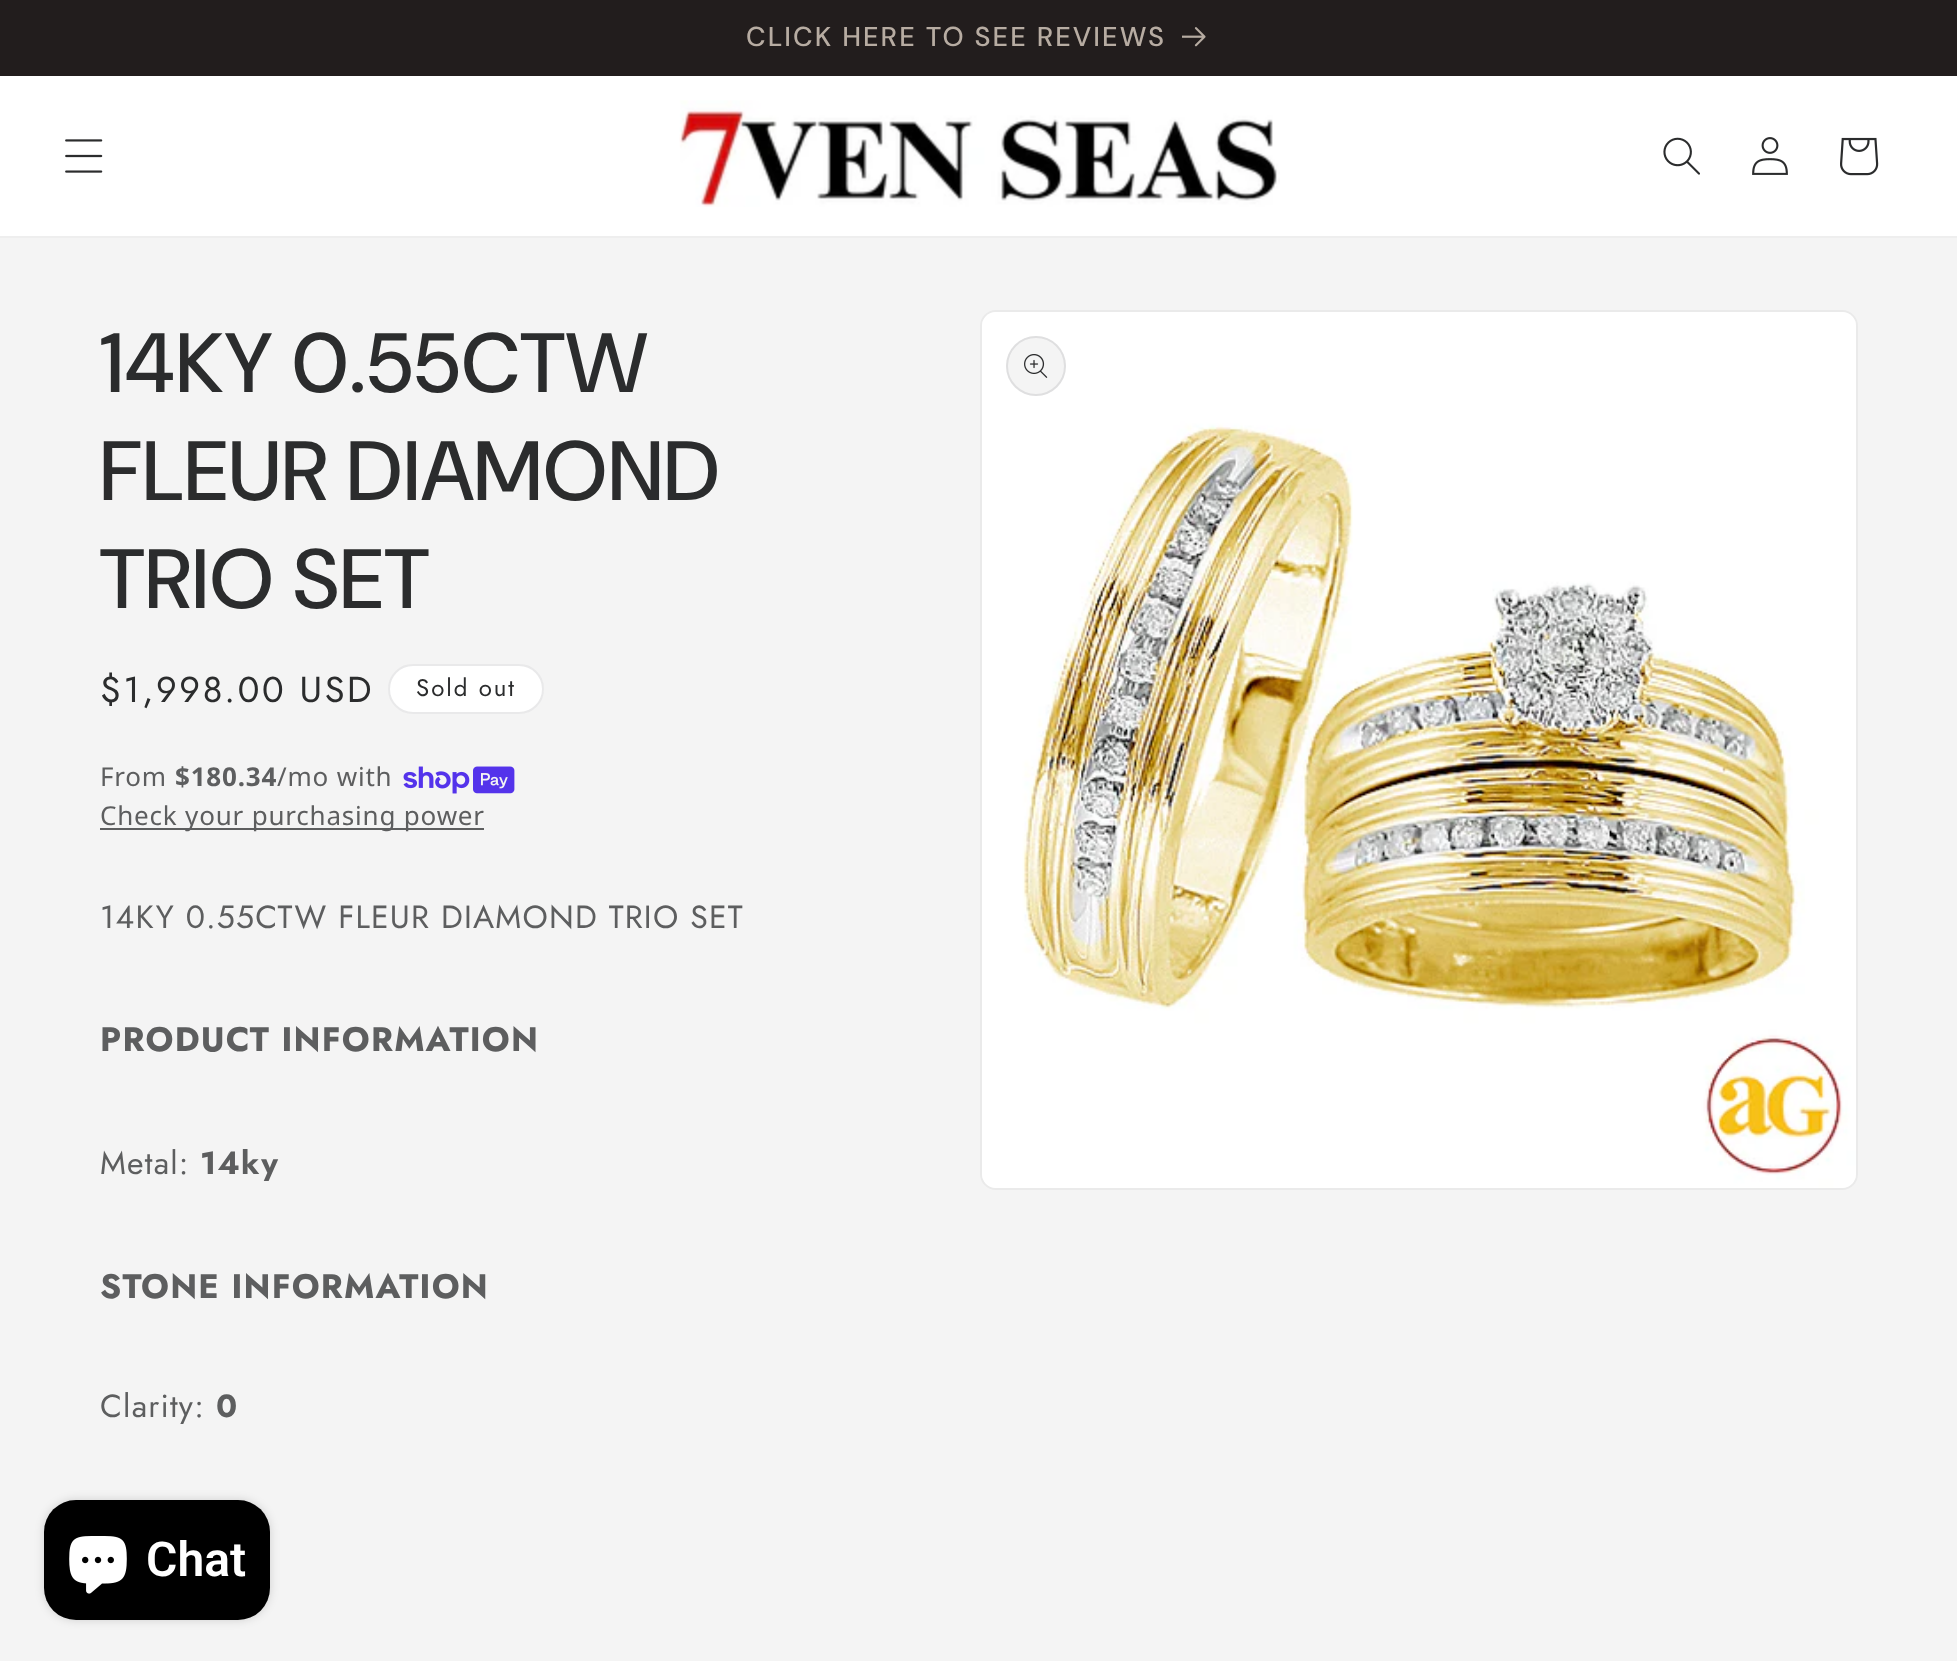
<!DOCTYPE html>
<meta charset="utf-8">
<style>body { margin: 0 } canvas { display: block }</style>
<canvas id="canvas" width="1957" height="1661"></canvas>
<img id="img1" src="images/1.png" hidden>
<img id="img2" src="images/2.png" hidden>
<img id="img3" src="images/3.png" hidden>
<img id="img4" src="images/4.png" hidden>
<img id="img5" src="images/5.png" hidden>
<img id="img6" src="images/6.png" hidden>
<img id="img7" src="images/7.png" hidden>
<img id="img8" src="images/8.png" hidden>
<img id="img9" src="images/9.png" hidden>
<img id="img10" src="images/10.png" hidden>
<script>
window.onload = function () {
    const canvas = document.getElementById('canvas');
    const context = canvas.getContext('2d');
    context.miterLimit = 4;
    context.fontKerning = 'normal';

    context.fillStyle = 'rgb(244, 244, 244)';
    context.fillRect(0, 0, 1957, 1661);
    context.fillStyle = 'rgb(34, 29, 29)';
    context.fillRect(0, 0, 1957, 76);
    context.drawImage(document.getElementById('img1'), 1182, 27, 24, 20);
    context.fillStyle = 'rgb(255, 255, 255)';
    context.fillRect(0, 76, 1957, 160);
    context.fillStyle = 'rgb(238, 238, 238)';
    context.fillRect(0, 236, 1957, 2);
    context.drawImage(document.getElementById('img2'), 65, 139, 38, 34);
    context.drawImage(document.getElementById('img3'), 679, 100, 601, 107);
    context.drawImage(document.getElementById('img4'), 1663, 137, 37, 38);
    context.drawImage(document.getElementById('img5'), 1752, 137, 36, 38);
    context.drawImage(document.getElementById('img6'), 1840, 137, 39, 39);
    context.fillStyle = 'rgb(255, 255, 255)';
    context.beginPath();
    context.roundRect(388, 664, 156, 50, 25);
    context.fill();
    context.beginPath();
    context.roundRect(389, 665, 154, 48, 24);
    context.strokeStyle = 'rgba(43, 44, 45, 0.1)';
    context.lineWidth = 2;
    context.stroke();
    context.drawImage(document.getElementById('img7'), 403, 766, 112, 28);
    context.fillStyle = 'rgb(93, 94, 95)';
    context.fillRect(100, 828, 384, 2);
    context.beginPath();
    context.roundRect(981, 311, 876, 878, 15);
    context.strokeStyle = 'rgb(234, 234, 234)';
    context.stroke();
    context.drawImage(document.getElementById('img8'), 982, 312, 874, 876);
    context.fillStyle = 'rgb(244, 244, 244)';
    context.beginPath();
    context.arc(1036, 366, 30, 0, 2 * Math.PI);
    context.fill();
    context.beginPath();
    context.arc(1036, 366, 29, 0, 2 * Math.PI);
    context.strokeStyle = 'rgba(43, 44, 45, 0.1)';
    context.stroke();
    context.drawImage(document.getElementById('img9'), 1024, 354, 24, 24);
    context.fillStyle = 'rgba(0, 0, 0, 0.15)';
    context.filter = 'blur(5px)';
    context.beginPath();
    context.roundRect(44, 1500, 226, 120, 32);
    context.fill();
    context.filter = 'none';
    context.fillStyle = 'rgb(0, 0, 0)';
    context.beginPath();
    context.roundRect(44, 1500, 226, 120, 32);
    context.fill();
    context.drawImage(document.getElementById('img10'), 69, 1536, 58, 58);
    context.letterSpacing = '2px';
    context.font = '500 27.25px "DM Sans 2"';
    context.fillStyle = 'rgb(183, 172, 162)';
    context.fillText('CLICK HERE TO SEE REVIEWS', 746, 46);
    context.letterSpacing = '1.25px';
    context.font = '500 84px DM Sans';
    context.fillStyle = 'rgb(43, 44, 45)';
    context.fillText('14KY 0.55CTW', 100, 392);
    context.fillText('FLEUR DIAMOND', 100, 500);
    context.fillText('TRIO SET', 100, 608);
    context.letterSpacing = '2.6px';
    context.font = '36px Jost';
    context.fillText('$1,998.00 USD', 100, 702);
    context.letterSpacing = '2px';
    context.font = '24px Jost';
    context.fillText('Sold out', 416, 696);
    context.letterSpacing = '0.8px';
    context.font = '26px Noto Sans';
    context.fillStyle = 'rgb(93, 94, 95)';
    context.fillText('From', 100, 786);
    context.font = 'bold 26px Noto Sans';
    context.fillText('$180.34', 175, 786);
    context.font = '26px Noto Sans';
    context.fillText('/mo with', 277, 786);
    context.fillText('Check your purchasing power', 100, 825);
    context.letterSpacing = '1.2px';
    context.font = '32px Jost';
    context.fillText('14KY 0.55CTW FLEUR DIAMOND TRIO SET', 100, 928);
    context.font = 'bold 34px Jost';
    context.fillText('PRODUCT INFORMATION', 100, 1051);
    context.font = '32px Jost';
    context.fillText('Metal:', 100, 1174);
    context.font = 'bold 32px Jost';
    context.fillText('14ky', 200, 1174);
    context.font = 'bold 34px Jost';
    context.fillText('STONE INFORMATION', 100, 1298);
    context.font = '32px Jost';
    context.fillText('Clarity:', 100, 1417);
    context.font = 'bold 32px Jost';
    context.fillText('0', 216, 1417);
    context.letterSpacing = '0px';
    context.font = '600 48px Roboto';
    context.fillStyle = 'rgb(255, 255, 255)';
    context.fillText('Chat', 146, 1576);
};
</script>
